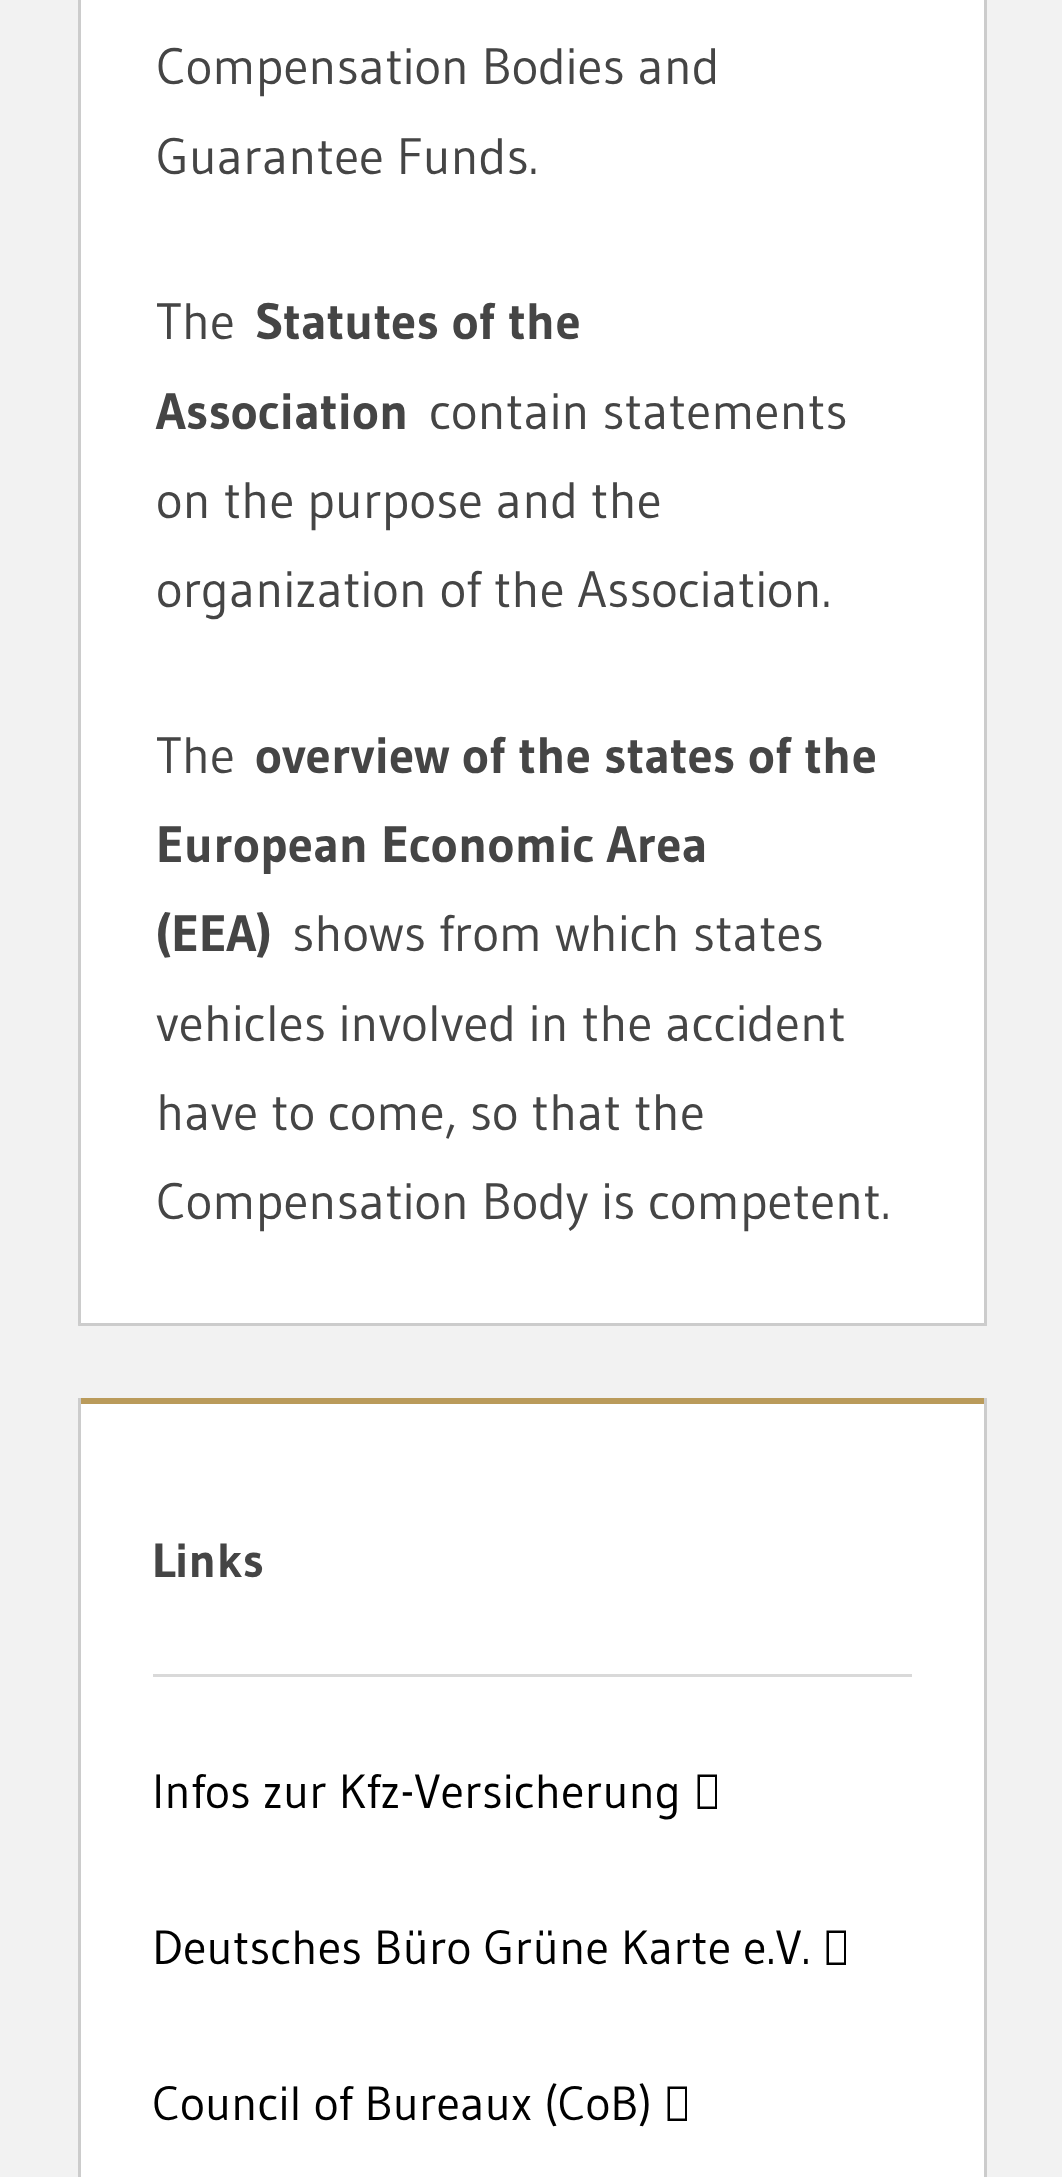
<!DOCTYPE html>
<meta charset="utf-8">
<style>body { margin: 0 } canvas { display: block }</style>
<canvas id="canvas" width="1062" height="2177"></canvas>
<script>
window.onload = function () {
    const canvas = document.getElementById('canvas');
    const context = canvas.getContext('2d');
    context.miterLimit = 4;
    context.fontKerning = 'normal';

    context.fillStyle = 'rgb(242, 242, 242)';
    context.fillRect(0, 0, 1062, 2177);
    context.fillStyle = 'rgb(255, 255, 255)';
    context.fillRect(78, 0, 909, 1326);
    context.fillStyle = 'rgb(204, 204, 204)';
    context.beginPath();
    context.moveTo(987, -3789);
    context.lineTo(987, 1326);
    context.lineTo(984, 1323);
    context.lineTo(984, -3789);
    context.closePath();
    context.fill();
    context.fillStyle = 'rgba(0, 0, 0, 0.2)';
    context.beginPath();
    context.moveTo(987, 1326);
    context.lineTo(78, 1326);
    context.lineTo(81, 1323);
    context.lineTo(984, 1323);
    context.closePath();
    context.fill();
    context.beginPath();
    context.moveTo(78, 1326);
    context.lineTo(78, -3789);
    context.lineTo(81, -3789);
    context.lineTo(81, 1323);
    context.closePath();
    context.fill();
    context.fillStyle = 'rgb(255, 255, 255)';
    context.fillRect(81, 1404, 903, 773);
    context.fillStyle = 'rgb(186, 155, 91)';
    context.fillRect(81, 1398, 903, 6);
    context.fillStyle = 'rgb(204, 204, 204)';
    context.beginPath();
    context.moveTo(987, 1398);
    context.lineTo(987, 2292);
    context.lineTo(984, 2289);
    context.lineTo(984, 1398);
    context.closePath();
    context.fill();
    context.beginPath();
    context.moveTo(78, 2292);
    context.lineTo(78, 1398);
    context.lineTo(81, 1398);
    context.lineTo(81, 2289);
    context.closePath();
    context.fill();
    context.fillStyle = 'rgb(217, 217, 217)';
    context.fillRect(153, 1674, 759, 3);
    context.fillStyle = 'rgb(0, 0, 0)';
    context.beginPath();
    context.moveTo(697.5, 1809);
    context.lineTo(697.5, 1774.5);
    context.lineTo(717, 1774.5);
    context.lineTo(717, 1809);
    context.closePath();
    context.moveTo(700, 1806.5);
    context.lineTo(715, 1806.5);
    context.lineTo(715, 1777);
    context.lineTo(700, 1777);
    context.closePath();
    context.fill();
    context.beginPath();
    context.moveTo(826.5, 1965);
    context.lineTo(826.5, 1930.5);
    context.lineTo(846, 1930.5);
    context.lineTo(846, 1965);
    context.closePath();
    context.moveTo(829, 1962.5);
    context.lineTo(844, 1962.5);
    context.lineTo(844, 1933);
    context.lineTo(829, 1933);
    context.closePath();
    context.fill();
    context.beginPath();
    context.moveTo(667.5, 2121);
    context.lineTo(667.5, 2086.5);
    context.lineTo(687, 2086.5);
    context.lineTo(687, 2121);
    context.closePath();
    context.moveTo(670, 2118.5);
    context.lineTo(685, 2118.5);
    context.lineTo(685, 2089);
    context.lineTo(670, 2089);
    context.closePath();
    context.fill();
    context.font = '51px Gudea';
    context.fillStyle = 'rgb(69, 69, 69)';
    context.fillText('Compensation Bodies and', 156, 84);
    context.fillText('Guarantee Funds.', 156, 174);
    context.fillText('The', 156, 339);
    context.font = 'bold 51px Gudea';
    context.fillText('Statutes of the', 255, 339);
    context.fillText('Association', 156, 429);
    context.font = '51px Gudea';
    context.fillText('contain statements', 429, 429);
    context.fillText('on the purpose and the', 156, 518);
    context.fillText('organization of the Association.', 156, 607);
    context.fillText('The', 156, 773);
    context.font = 'bold 51px Gudea';
    context.fillText('overview of the states of the', 255, 773);
    context.fillText('European Economic Area', 156, 862);
    context.fillText('(EEA)', 156, 951);
    context.font = '51px Gudea';
    context.fillText('shows from which states', 292, 951);
    context.fillText('vehicles involved in the accident', 156, 1041);
    context.fillText('have to come, so that the', 156, 1130);
    context.fillText('Compensation Body is competent.', 156, 1219);
    context.font = 'bold 48px Gudea';
    context.fillText('Links', 152, 1577);
    context.font = '48px Gudea';
    context.fillStyle = 'rgb(0, 0, 0)';
    context.fillText('Infos zur Kfz-Versicherung', 152, 1808);
    context.fillText('Deutsches Büro Grüne Karte e.V.', 152, 1964);
    context.fillText('Council of Bureaux (CoB)', 152, 2120);
};
</script>
